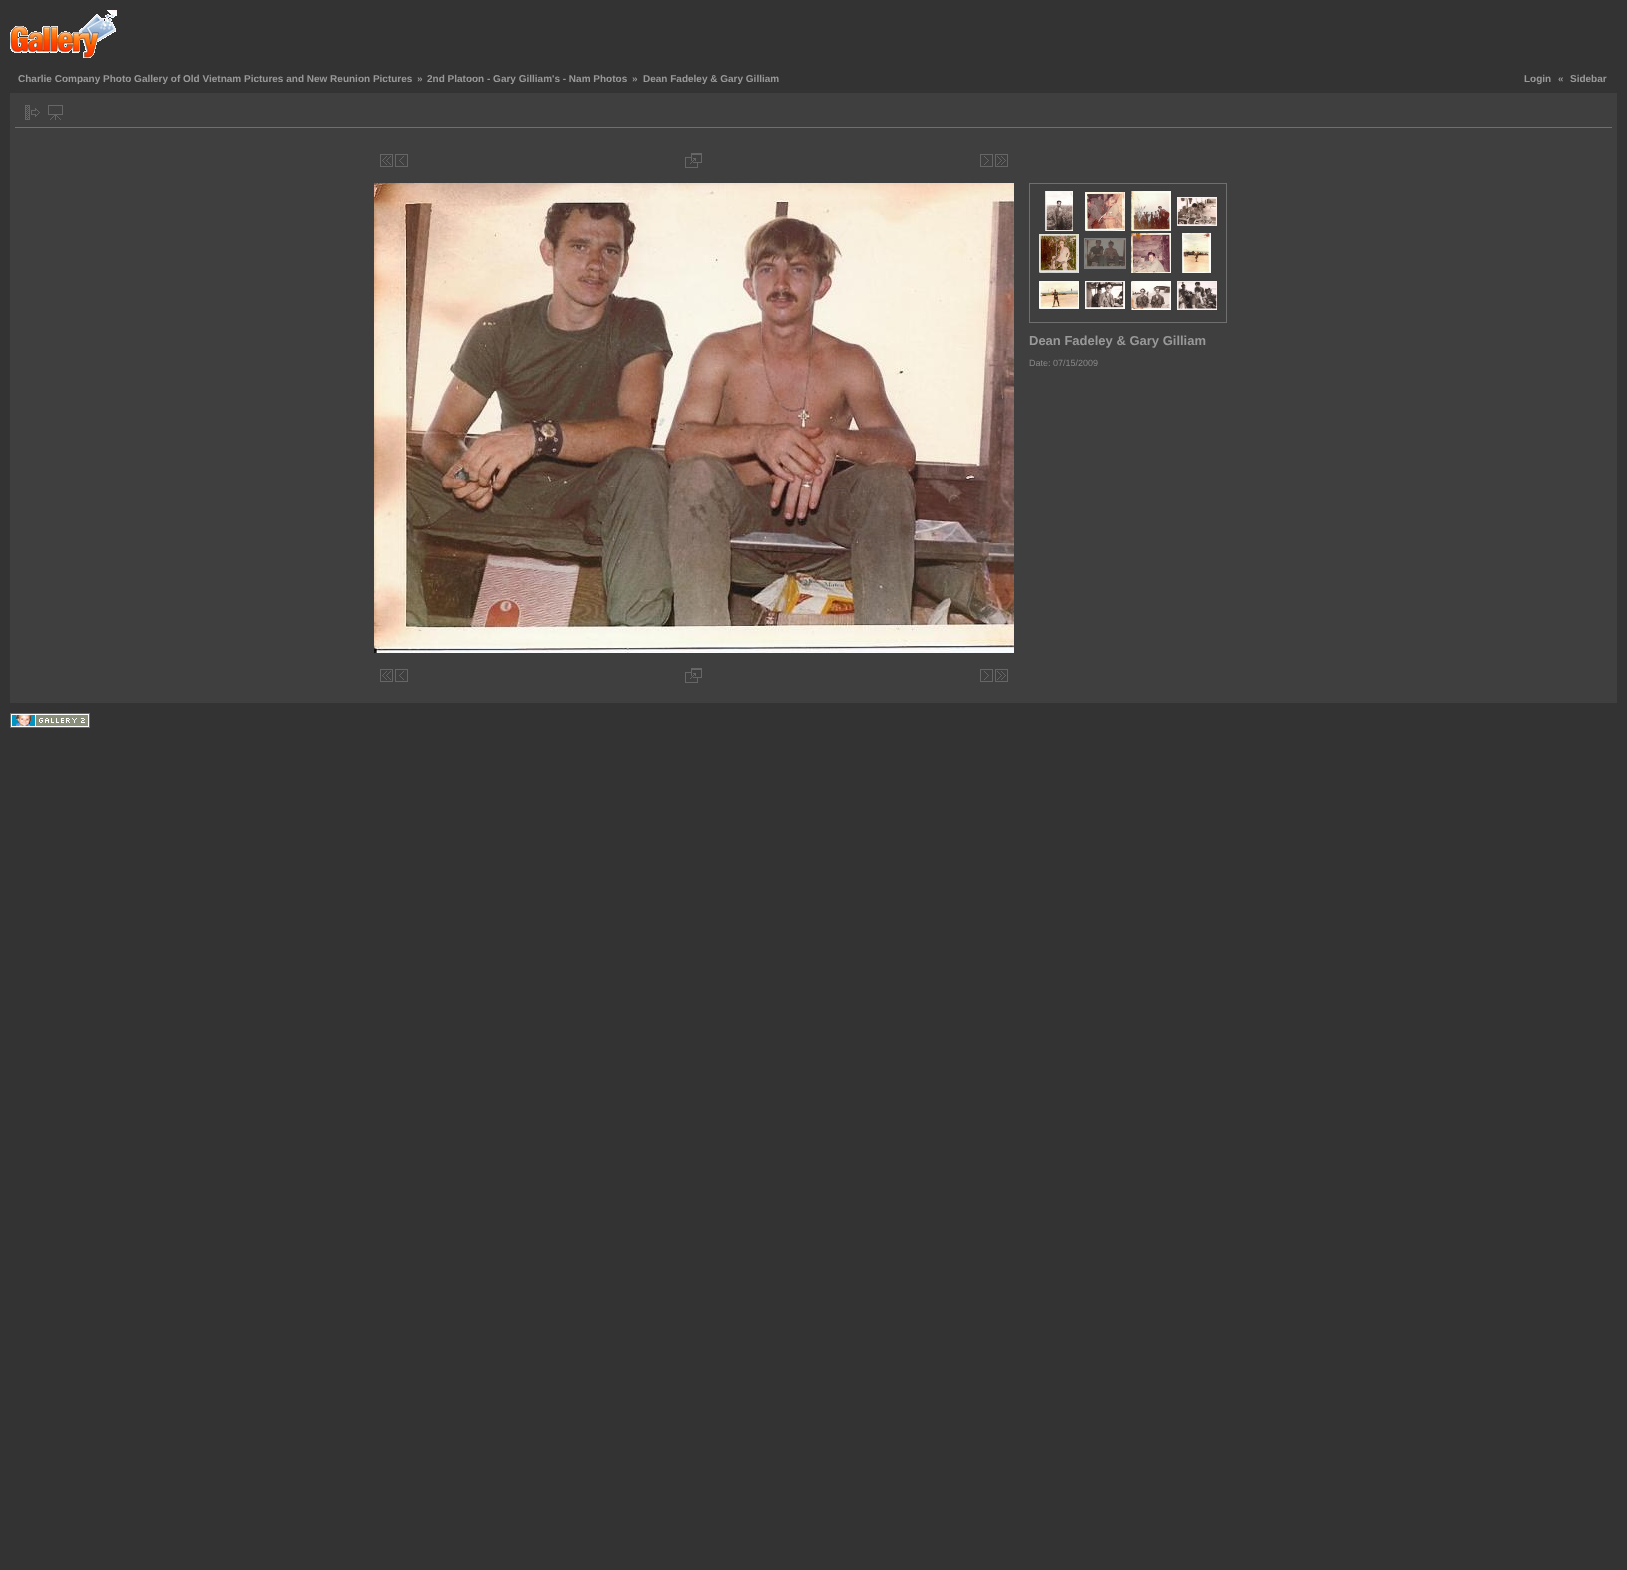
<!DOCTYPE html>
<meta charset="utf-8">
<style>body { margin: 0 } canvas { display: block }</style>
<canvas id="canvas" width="1627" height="1570"></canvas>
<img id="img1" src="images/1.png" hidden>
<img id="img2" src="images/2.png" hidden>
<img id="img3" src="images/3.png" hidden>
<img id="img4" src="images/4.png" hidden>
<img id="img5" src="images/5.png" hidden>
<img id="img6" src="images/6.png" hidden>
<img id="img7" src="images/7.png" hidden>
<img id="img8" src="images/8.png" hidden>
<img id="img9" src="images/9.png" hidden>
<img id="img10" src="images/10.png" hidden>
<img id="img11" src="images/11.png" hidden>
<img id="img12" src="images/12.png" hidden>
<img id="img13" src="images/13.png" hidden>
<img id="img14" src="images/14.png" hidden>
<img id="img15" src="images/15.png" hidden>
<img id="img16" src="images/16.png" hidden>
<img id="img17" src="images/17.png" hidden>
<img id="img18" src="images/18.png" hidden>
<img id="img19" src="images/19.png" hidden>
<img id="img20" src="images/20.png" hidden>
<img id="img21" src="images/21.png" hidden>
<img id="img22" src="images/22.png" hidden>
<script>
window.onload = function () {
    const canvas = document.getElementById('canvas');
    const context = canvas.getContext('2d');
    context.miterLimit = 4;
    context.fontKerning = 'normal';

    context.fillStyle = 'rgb(51, 51, 51)';
    context.fillRect(0, 0, 1627, 1570);
    context.drawImage(document.getElementById('img1'), 10, 10, 107, 48);
    context.fillStyle = 'rgb(63, 63, 63)';
    context.fillRect(10, 93, 1607, 610);
    context.fillStyle = 'rgb(111, 111, 111)';
    context.fillRect(15, 127, 1597, 1);
    context.drawImage(document.getElementById('img2'), 25, 105, 15, 15);
    context.drawImage(document.getElementById('img3'), 48, 105, 15, 15);
    context.drawImage(document.getElementById('img4'), 380, 154, 13, 13);
    context.drawImage(document.getElementById('img5'), 395, 154, 13, 13);
    context.drawImage(document.getElementById('img6'), 685, 153, 17, 15);
    context.drawImage(document.getElementById('img7'), 980, 154, 13, 13);
    context.drawImage(document.getElementById('img8'), 995, 154, 13, 13);
    context.drawImage(document.getElementById('img9'), 374, 183, 640, 470);
    context.strokeStyle = 'rgb(111, 111, 111)';
    context.strokeRect(1029.5, 183.5, 197, 139);
    context.drawImage(document.getElementById('img10'), 1045, 191, 28, 40);
    context.drawImage(document.getElementById('img11'), 1085, 192, 40, 39);
    context.drawImage(document.getElementById('img12'), 1131, 191, 40, 40);
    context.drawImage(document.getElementById('img13'), 1177, 197, 40, 29);
    context.drawImage(document.getElementById('img14'), 1039, 234, 40, 39);
    context.strokeStyle = 'rgb(126, 126, 126)';
    context.strokeRect(1084.5, 238.5, 41, 30);
    context.drawImage(document.getElementById('img15'), 1085, 239, 40, 29);
    context.drawImage(document.getElementById('img16'), 1131, 233, 40, 40);
    context.drawImage(document.getElementById('img17'), 1182, 233, 29, 40);
    context.drawImage(document.getElementById('img18'), 1039, 281, 40, 28);
    context.drawImage(document.getElementById('img19'), 1085, 281, 40, 28);
    context.drawImage(document.getElementById('img20'), 1131, 281, 40, 29);
    context.drawImage(document.getElementById('img21'), 1177, 281, 40, 29);
    context.drawImage(document.getElementById('img4'), 380, 669, 13, 13);
    context.drawImage(document.getElementById('img5'), 395, 669, 13, 13);
    context.drawImage(document.getElementById('img6'), 685, 668, 17, 15);
    context.drawImage(document.getElementById('img7'), 980, 669, 13, 13);
    context.drawImage(document.getElementById('img8'), 995, 669, 13, 13);
    context.drawImage(document.getElementById('img22'), 10, 713, 80, 15);
    context.font = 'bold 10px Liberation Sans';
    context.fillStyle = 'rgb(153, 153, 153)';
    context.fillText('Charlie Company Photo Gallery of Old Vietnam Pictures and New Reunion Pictures', 18, 82);
    context.fillText('»', 417, 82);
    context.fillText('2nd Platoon - Gary Gilliam\'s - Nam Photos', 427, 82);
    context.fillText('»', 632, 82);
    context.fillText('Dean Fadeley & Gary Gilliam', 643, 82);
    context.fillText('Login', 1524, 82);
    context.fillText('«', 1558, 82);
    context.fillText('Sidebar', 1570, 82);
    context.font = 'bold 13px Liberation Sans';
    context.fillText('Dean Fadeley & Gary Gilliam', 1029, 345);
    context.font = '9px Liberation Sans';
    context.fillStyle = 'rgb(136, 136, 136)';
    context.fillText('Date: 07/15/2009', 1029, 366);
};
</script>
